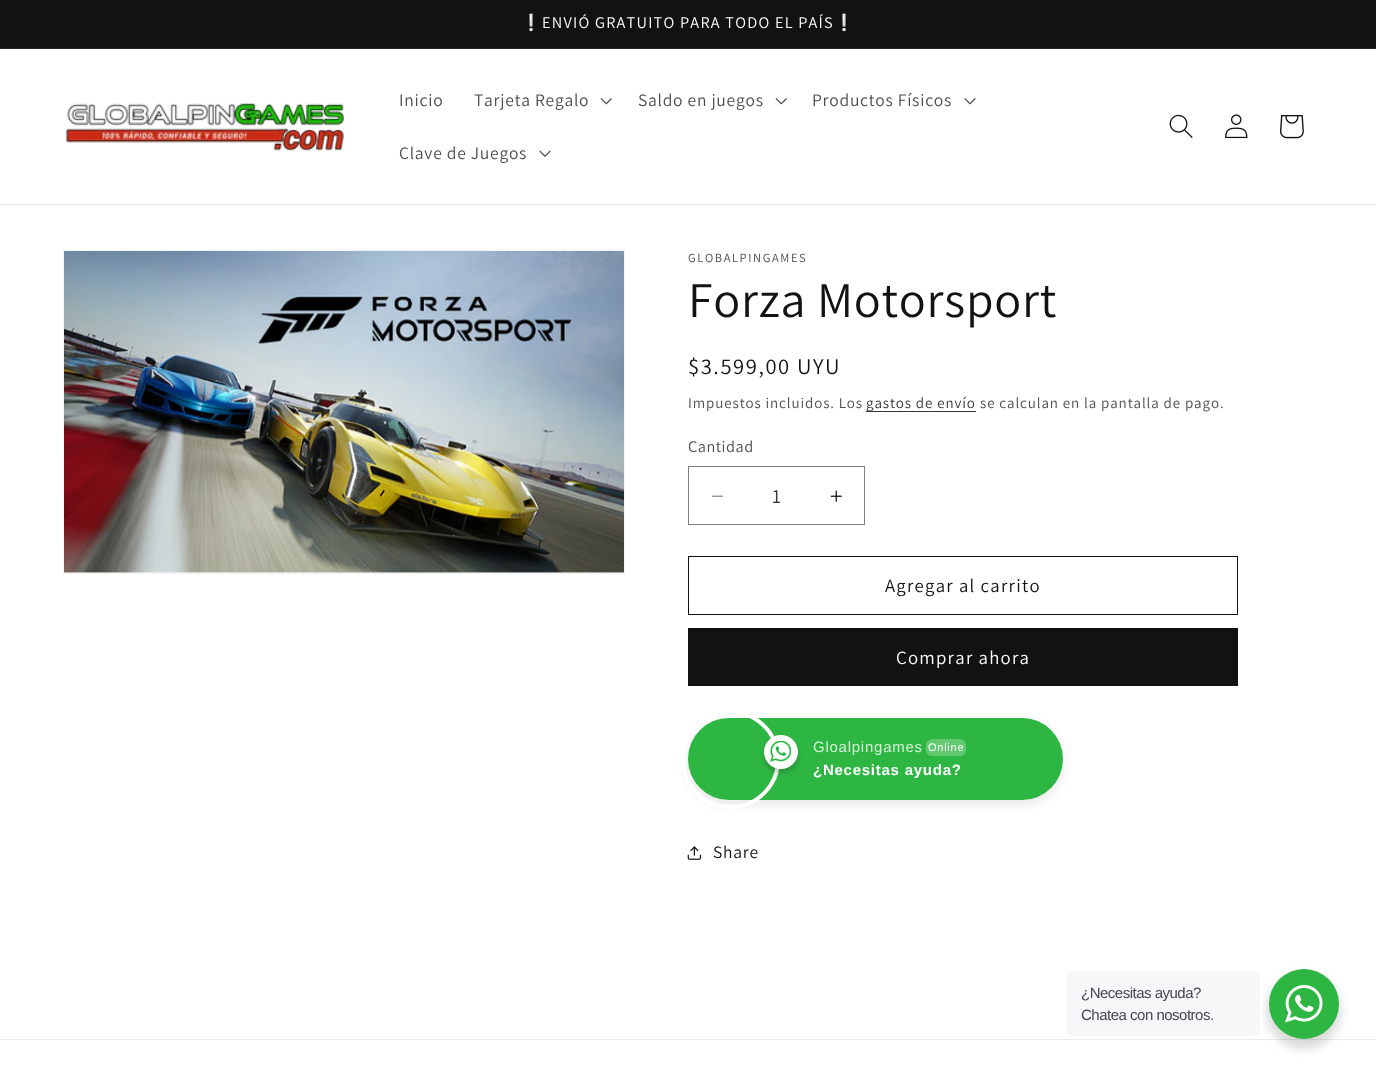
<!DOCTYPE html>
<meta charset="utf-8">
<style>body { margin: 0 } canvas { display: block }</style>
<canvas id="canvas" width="1376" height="1076"></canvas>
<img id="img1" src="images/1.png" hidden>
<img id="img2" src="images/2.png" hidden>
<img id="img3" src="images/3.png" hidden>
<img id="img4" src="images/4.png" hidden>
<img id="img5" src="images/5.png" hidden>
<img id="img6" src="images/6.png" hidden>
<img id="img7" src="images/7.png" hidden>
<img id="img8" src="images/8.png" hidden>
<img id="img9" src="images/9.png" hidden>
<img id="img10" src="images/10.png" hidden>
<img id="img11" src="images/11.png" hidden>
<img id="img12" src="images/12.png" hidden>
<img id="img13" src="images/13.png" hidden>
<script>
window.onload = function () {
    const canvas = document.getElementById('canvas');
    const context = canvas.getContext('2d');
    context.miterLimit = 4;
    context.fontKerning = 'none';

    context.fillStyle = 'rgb(255, 255, 255)';
    context.fillRect(0, 0, 1376, 1076);
    context.fillStyle = 'rgb(18, 18, 18)';
    context.fillRect(0, 0, 1376, 48);
    context.fillStyle = 'rgb(37, 37, 37)';
    context.fillRect(0, 48, 1376, 1);
    context.fillStyle = 'rgb(236, 236, 236)';
    context.fillRect(0, 204, 1376, 1);
    context.drawImage(document.getElementById('img1'), 66, 103, 278, 48);
    context.drawImage(document.getElementById('img2'), 600, 98, 12, 7);
    context.drawImage(document.getElementById('img2'), 775, 98, 12, 7);
    context.drawImage(document.getElementById('img3'), 964, 98, 12, 7);
    context.drawImage(document.getElementById('img4'), 539, 150, 12, 7);
    context.drawImage(document.getElementById('img5'), 1169, 114, 24, 24);
    context.drawImage(document.getElementById('img6'), 1225, 114, 23, 25);
    context.drawImage(document.getElementById('img7'), 1280, 115, 24, 24);
    context.strokeStyle = 'rgb(243, 243, 243)';
    context.strokeRect(63.5, 250.5, 561, 323);
    context.drawImage(document.getElementById('img8'), 64, 251, 560, 322);
    context.fillStyle = 'rgb(54, 54, 54)';
    context.fillRect(866, 411, 110, 1);
    context.drawImage(document.getElementById('img9'), 712, 495, 11, 2);
    context.drawImage(document.getElementById('img10'), 830, 490, 12, 12);
    context.strokeStyle = 'rgb(125, 125, 125)';
    context.strokeRect(688.5, 466.5, 176, 58);
    context.strokeStyle = 'rgb(18, 18, 18)';
    context.strokeRect(688.5, 556.5, 549, 58);
    context.fillStyle = 'rgb(18, 18, 18)';
    context.fillRect(688, 628, 550, 58);
    context.fillStyle = 'rgba(32, 32, 37, 0.09)';
    context.filter = 'blur(5px)';
    context.beginPath();
    context.roundRect(686, 721, 378, 85, 42.5);
    context.fill();
    context.filter = 'none';
    context.fillStyle = 'rgb(45, 183, 66)';
    context.beginPath();
    context.roundRect(688, 718, 375, 82, 41);
    context.fill();
    context.beginPath();
    context.arc(730.5, 759.5, 47.5, 0, 2 * Math.PI);
    context.strokeStyle = 'rgb(255, 255, 255)';
    context.lineWidth = 4;
    context.stroke();
    context.fillStyle = 'rgba(39, 38, 38, 0.26)';
    context.filter = 'blur(2.5px)';
    context.beginPath();
    context.roundRect(764, 739, 34, 34, 17);
    context.fill();
    context.filter = 'none';
    context.fillStyle = 'rgb(255, 255, 255)';
    context.beginPath();
    context.arc(781, 752, 17, 0, 2 * Math.PI);
    context.fill();
    context.drawImage(document.getElementById('img11'), 770, 741, 21, 21);
    context.fillStyle = 'rgb(98, 201, 113)';
    context.beginPath();
    context.roundRect(926, 739, 40, 17, 6);
    context.fill();
    context.drawImage(document.getElementById('img12'), 687, 846, 15, 14);
    context.fillStyle = 'rgb(236, 236, 236)';
    context.fillRect(0, 1039, 1376, 1);
    context.fillStyle = 'rgba(0, 0, 0, 0.14)';
    context.filter = 'blur(5px)';
    context.beginPath();
    context.roundRect(1266, 974, 75, 75, 37.5);
    context.fill();
    context.filter = 'none';
    context.fillStyle = 'rgb(245, 247, 249)';
    context.beginPath();
    context.roundRect(1066, 971, 194, 65, 5);
    context.fill();
    context.fillStyle = 'rgb(45, 183, 66)';
    context.beginPath();
    context.arc(1304, 1004, 35, 0, 2 * Math.PI);
    context.fill();
    context.drawImage(document.getElementById('img13'), 1285, 985, 38, 38);
    context.letterSpacing = '1.25px';
    context.font = '16.25px Noto Color Emoji';
    context.fillStyle = 'rgb(255, 255, 255)';
    context.fillText('❕', 521, 28);
    context.font = '16.25px Assistant';
    context.fillText('ENVIÓ GRATUITO PARA TODO EL PAÍS', 542, 28);
    context.font = '16.25px Noto Color Emoji';
    context.fillText('❕', 834, 28);
    context.letterSpacing = '0.75px';
    context.font = '17.5px Assistant';
    context.fillStyle = 'rgb(77, 77, 77)';
    context.fillText('Inicio', 399, 106);
    context.fillText('Tarjeta Regalo', 474, 106);
    context.fillText('Saldo en juegos', 638, 106);
    context.fillText('Productos Físicos', 812, 106);
    context.fillText('Clave de Juegos', 399, 159);
    context.letterSpacing = '1.6px';
    context.font = '12.5px Assistant';
    context.fillText('GLOBALPINGAMES', 688, 262);
    context.letterSpacing = '0.75px';
    context.font = '50px Assistant';
    context.fillStyle = 'rgb(18, 18, 18)';
    context.fillText('Forza Motorsport', 688, 317);
    context.letterSpacing = '1.6px';
    context.font = '22.5px Assistant';
    context.fillText('$3.599,00 UYU', 688, 374);
    context.letterSpacing = '0.9px';
    context.font = '15px Assistant';
    context.fillStyle = 'rgb(77, 77, 77)';
    context.fillText('Impuestos incluidos. Los', 688, 408);
    context.fillStyle = 'rgb(53, 53, 53)';
    context.fillText('gastos de envío', 866, 408);
    context.fillStyle = 'rgb(77, 77, 77)';
    context.fillText('se calculan en la pantalla de pago.', 980, 408);
    context.letterSpacing = '0.5px';
    context.font = '16.25px Assistant';
    context.fillText('Cantidad', 688, 452);
    context.letterSpacing = '0px';
    context.font = '20px Assistant';
    context.fillStyle = 'rgb(53, 53, 53)';
    context.fillText('1', 772, 503);
    context.letterSpacing = '1.25px';
    context.font = '18.75px Assistant';
    context.fillStyle = 'rgb(18, 18, 18)';
    context.fillText('Agregar al carrito', 885, 592);
    context.fillStyle = 'rgb(255, 255, 255)';
    context.fillText('Comprar ahora', 896, 664);
    context.letterSpacing = '0.75px';
    context.font = '15px Liberation Sans';
    context.fillStyle = 'rgb(213, 240, 217)';
    context.fillText('Gloalpingames', 813, 752);
    context.font = '11px Liberation Sans';
    context.fillStyle = 'rgb(255, 255, 255)';
    context.fillText('Online', 928, 751);
    context.font = 'bold 15px Liberation Sans';
    context.fillText('¿Necesitas ayuda?', 813, 775);
    context.font = '17.5px Assistant';
    context.fillStyle = 'rgb(18, 18, 18)';
    context.fillText('Share', 713, 858);
    context.letterSpacing = '-0.5px';
    context.font = '15px Liberation Sans';
    context.fillStyle = 'rgb(67, 71, 78)';
    context.fillText('¿Necesitas ayuda?', 1081, 998);
    context.fillText('Chatea con nosotros.', 1081, 1020);
};
</script>
